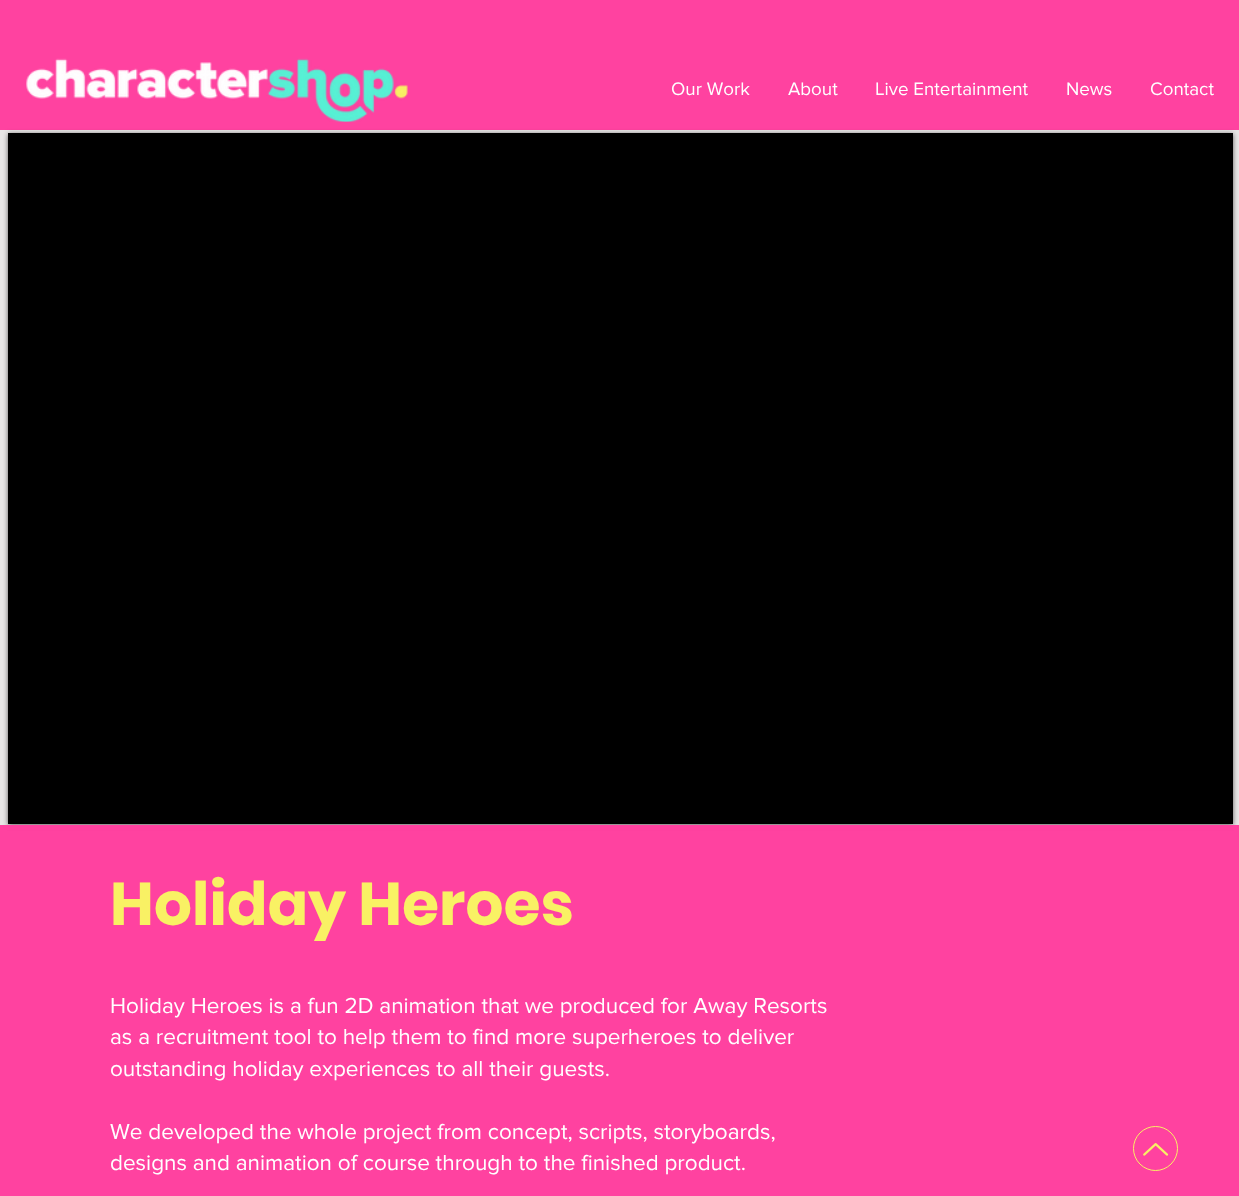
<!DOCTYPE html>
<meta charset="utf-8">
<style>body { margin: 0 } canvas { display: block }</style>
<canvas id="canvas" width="1239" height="1196"></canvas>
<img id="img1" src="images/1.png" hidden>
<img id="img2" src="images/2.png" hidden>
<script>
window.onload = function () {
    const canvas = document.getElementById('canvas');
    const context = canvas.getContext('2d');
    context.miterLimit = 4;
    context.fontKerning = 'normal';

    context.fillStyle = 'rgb(255, 66, 160)';
    context.fillRect(0, 0, 1239, 1196);
    context.drawImage(document.getElementById('img1'), 26, 58, 382, 64);
    context.fillStyle = 'rgb(232, 230, 230)';
    context.fillRect(0, 130, 1239, 695);
    context.fillStyle = 'rgba(0, 0, 0, 0.6)';
    context.filter = 'blur(2.5px)';
    context.beginPath();
    context.rect(8, 134, 1225, 691);
    context.fill();
    context.filter = 'none';
    context.fillStyle = 'rgb(0, 0, 0)';
    context.fillRect(8, 133, 1225, 691);
    context.fillStyle = 'rgb(255, 66, 160)';
    context.fillRect(4, 825, 1233, 5);
    context.beginPath();
    context.arc(1155.5, 1148.5, 22, 0, 2 * Math.PI);
    context.strokeStyle = 'rgb(249, 241, 100)';
    context.stroke();
    context.drawImage(document.getElementById('img2'), 1143, 1143, 26, 13);
    context.font = '18.75px "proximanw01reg"';
    context.fillStyle = 'rgb(255, 255, 255)';
    context.fillText('Our Work', 671, 95);
    context.fillText('About', 788, 95);
    context.fillText('Live Entertainment', 875, 95);
    context.fillText('News', 1066, 95);
    context.fillText('Contact', 1150, 95);
    context.font = 'bold 60px Poppins';
    context.fillStyle = 'rgb(249, 241, 100)';
    context.fillText('Holiday Heroes', 110, 925);
    context.font = '22.5px "proximanw01reg"';
    context.fillStyle = 'rgb(255, 255, 255)';
    context.fillText('Holiday Heroes is a fun 2D animation that we produced for Away Resorts', 110, 1013);
    context.fillText('as a recruitment tool to help them to find more superheroes to deliver', 110, 1044);
    context.fillText('outstanding holiday experiences to all their guests.', 110, 1076);
    context.fillText('We developed the whole project from concept, scripts, storyboards,', 110, 1139);
    context.fillText('designs and animation of course through to the finished product.', 110, 1170);
};
</script>
